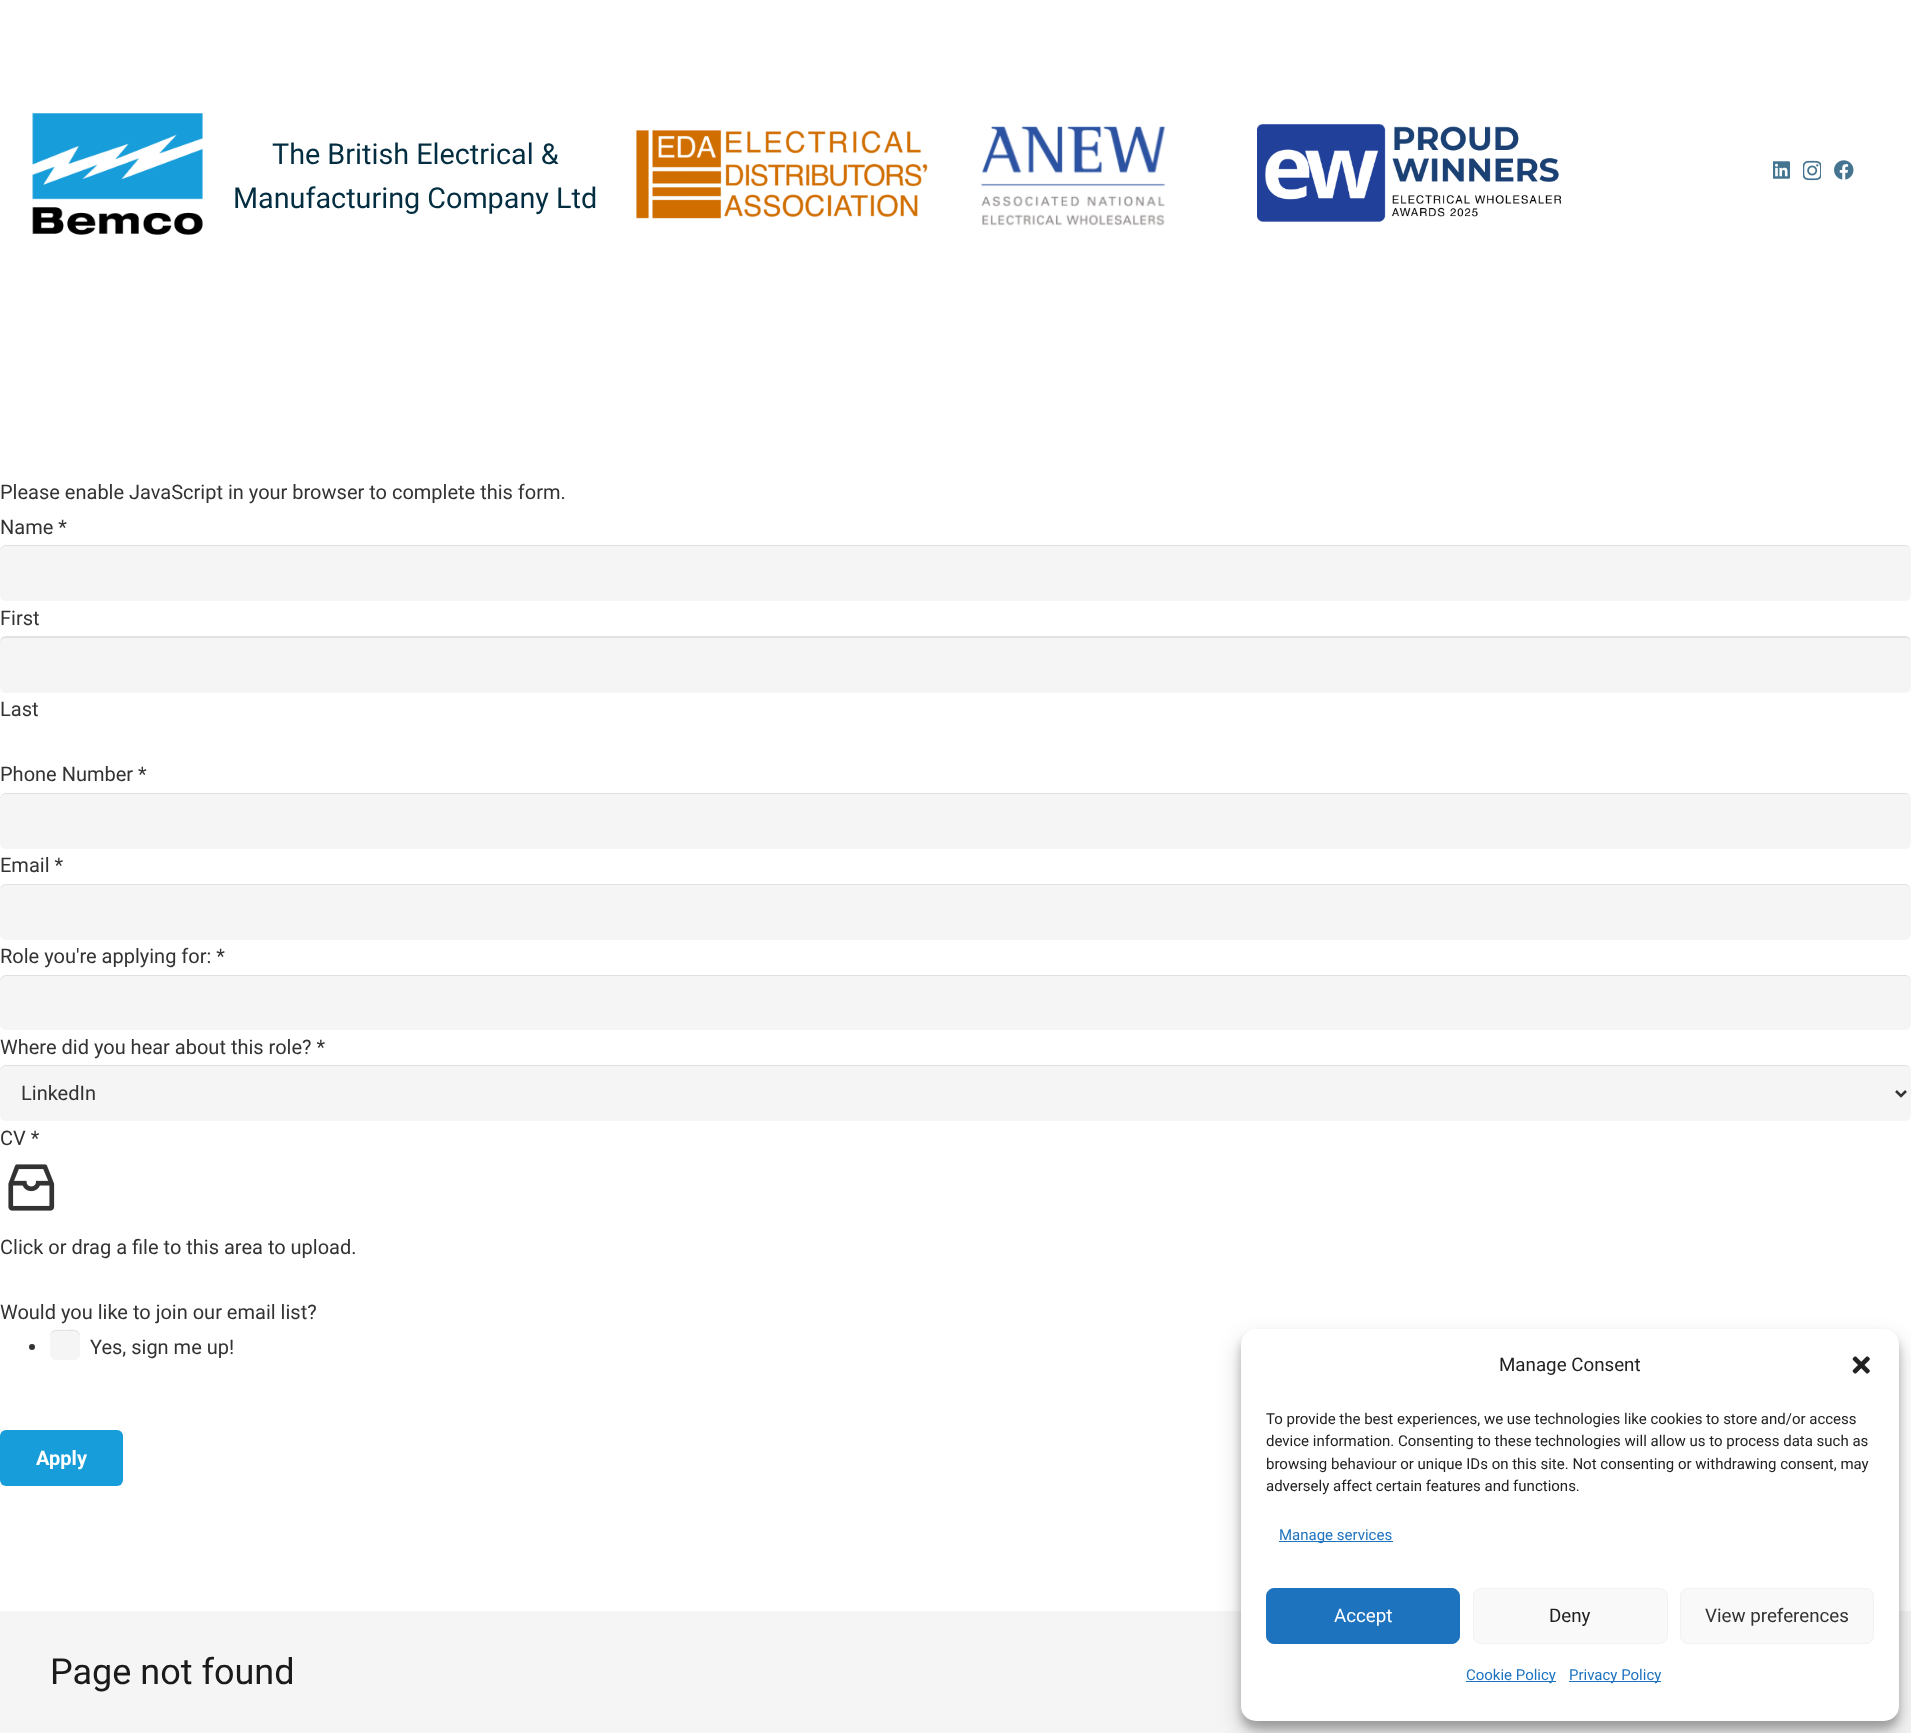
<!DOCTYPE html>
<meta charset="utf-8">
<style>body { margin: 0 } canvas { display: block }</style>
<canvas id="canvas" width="1911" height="1733"></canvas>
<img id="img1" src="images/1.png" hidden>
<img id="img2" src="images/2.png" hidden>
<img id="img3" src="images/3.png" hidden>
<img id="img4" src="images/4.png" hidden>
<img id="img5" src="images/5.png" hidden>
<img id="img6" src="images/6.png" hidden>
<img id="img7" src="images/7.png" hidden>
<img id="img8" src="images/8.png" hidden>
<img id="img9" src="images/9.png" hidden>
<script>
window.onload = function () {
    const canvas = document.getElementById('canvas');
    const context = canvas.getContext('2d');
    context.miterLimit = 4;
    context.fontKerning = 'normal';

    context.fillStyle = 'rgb(245, 245, 245)';
    context.fillRect(0, 0, 1911, 1733);
    context.fillStyle = 'rgb(255, 255, 255)';
    context.fillRect(0, 0, 1911, 1611);
    context.drawImage(document.getElementById('img1'), 32, 113, 171, 122);
    context.drawImage(document.getElementById('img2'), 636, 130, 292, 89);
    context.drawImage(document.getElementById('img3'), 981, 126, 185, 100);
    context.drawImage(document.getElementById('img4'), 1257, 124, 305, 98);
    context.drawImage(document.getElementById('img5'), 1773, 161, 17, 18);
    context.drawImage(document.getElementById('img6'), 1803, 160, 18, 21);
    context.drawImage(document.getElementById('img7'), 1834, 160, 20, 20);
    context.fillStyle = 'rgb(245, 245, 245)';
    context.beginPath();
    context.roundRect(0, 545, 1911, 56, 6);
    context.fill();
    context.fillStyle = 'rgb(225, 225, 225)';
    context.beginPath();
    context.moveTo(6, 546);
    context.lineTo(1905, 546);
    context.bezierCurveTo(1909, 546, 1911, 549, 1911, 552);
    context.lineTo(1911, 551);
    context.bezierCurveTo(1911, 548, 1908, 545, 1905, 545);
    context.lineTo(6, 545);
    context.bezierCurveTo(3, 545, 0, 548, 0, 551);
    context.lineTo(0, 552);
    context.bezierCurveTo(0, 549, 3, 546, 6, 546);
    context.closePath();
    context.fill();
    context.fillStyle = 'rgb(245, 245, 245)';
    context.beginPath();
    context.roundRect(0, 636, 1911, 57, 6);
    context.fill();
    context.fillStyle = 'rgba(0, 0, 0, 0.08)';
    context.beginPath();
    context.moveTo(6, 638);
    context.lineTo(1905, 638);
    context.bezierCurveTo(1909, 638, 1911, 640, 1911, 644);
    context.bezierCurveTo(1911, 640, 1910, 636, 1905, 636);
    context.lineTo(6, 636);
    context.bezierCurveTo(1, 636, 0, 640, 0, 644);
    context.bezierCurveTo(0, 640, 3, 638, 6, 638);
    context.closePath();
    context.fill();
    context.fillStyle = 'rgb(245, 245, 245)';
    context.beginPath();
    context.roundRect(0, 793, 1911, 56, 6);
    context.fill();
    context.fillStyle = 'rgb(225, 225, 225)';
    context.beginPath();
    context.moveTo(6, 794);
    context.lineTo(1905, 794);
    context.bezierCurveTo(1909, 794, 1911, 796, 1911, 800);
    context.lineTo(1911, 799);
    context.bezierCurveTo(1911, 796, 1908, 793, 1905, 793);
    context.lineTo(6, 793);
    context.bezierCurveTo(3, 793, 0, 796, 0, 799);
    context.lineTo(0, 800);
    context.bezierCurveTo(0, 796, 3, 794, 6, 794);
    context.closePath();
    context.fill();
    context.fillStyle = 'rgb(245, 245, 245)';
    context.beginPath();
    context.roundRect(0, 884, 1911, 56, 6);
    context.fill();
    context.fillStyle = 'rgb(225, 225, 225)';
    context.beginPath();
    context.moveTo(6, 885);
    context.lineTo(1905, 885);
    context.bezierCurveTo(1909, 885, 1911, 888, 1911, 891);
    context.lineTo(1911, 890);
    context.bezierCurveTo(1911, 887, 1908, 884, 1905, 884);
    context.lineTo(6, 884);
    context.bezierCurveTo(3, 884, 0, 887, 0, 890);
    context.lineTo(0, 891);
    context.bezierCurveTo(0, 888, 3, 885, 6, 885);
    context.closePath();
    context.fill();
    context.fillStyle = 'rgb(245, 245, 245)';
    context.beginPath();
    context.roundRect(0, 975, 1911, 55, 6);
    context.fill();
    context.fillStyle = 'rgb(225, 225, 225)';
    context.beginPath();
    context.moveTo(6, 976);
    context.lineTo(1905, 976);
    context.bezierCurveTo(1909, 976, 1911, 979, 1911, 982);
    context.lineTo(1911, 981);
    context.bezierCurveTo(1911, 978, 1908, 975, 1905, 975);
    context.lineTo(6, 975);
    context.bezierCurveTo(3, 975, 0, 978, 0, 981);
    context.lineTo(0, 982);
    context.bezierCurveTo(0, 979, 3, 976, 6, 976);
    context.closePath();
    context.fill();
    context.fillStyle = 'rgb(245, 245, 245)';
    context.beginPath();
    context.roundRect(0, 1065, 1911, 56, 6);
    context.fill();
    context.fillStyle = 'rgb(225, 225, 225)';
    context.beginPath();
    context.moveTo(6, 1066);
    context.lineTo(1905, 1066);
    context.bezierCurveTo(1909, 1066, 1911, 1069, 1911, 1072);
    context.lineTo(1911, 1071);
    context.bezierCurveTo(1911, 1068, 1908, 1065, 1905, 1065);
    context.lineTo(6, 1065);
    context.bezierCurveTo(3, 1065, 0, 1068, 0, 1071);
    context.lineTo(0, 1072);
    context.bezierCurveTo(0, 1069, 3, 1066, 6, 1066);
    context.closePath();
    context.fill();
    context.beginPath();
    context.moveTo(1896, 1091);
    context.lineTo(1901, 1096);
    context.lineTo(1906, 1091);
    context.strokeStyle = 'rgb(51, 51, 51)';
    context.lineWidth = 2.5;
    context.stroke();
    context.drawImage(document.getElementById('img8'), 8, 1164, 47, 47);
    context.fillStyle = 'rgb(51, 51, 51)';
    context.beginPath();
    context.arc(32, 1347, 3, 0, 2 * Math.PI);
    context.fill();
    context.fillStyle = 'rgb(245, 245, 245)';
    context.beginPath();
    context.roundRect(50, 1330, 30, 30, 6);
    context.fill();
    context.fillStyle = 'rgb(226, 226, 226)';
    context.beginPath();
    context.moveTo(56, 1331);
    context.lineTo(74, 1331);
    context.bezierCurveTo(77, 1331, 80, 1334, 80, 1337);
    context.bezierCurveTo(80, 1328, 71.5, 1330, 65, 1330);
    context.bezierCurveTo(58.5, 1330, 50, 1328, 50, 1337);
    context.bezierCurveTo(50, 1334, 53, 1331, 56, 1331);
    context.closePath();
    context.fill();
    context.fillStyle = 'rgb(23, 157, 217)';
    context.beginPath();
    context.roundRect(0, 1430, 123, 56, 6);
    context.fill();
    context.fillStyle = 'rgba(0, 0, 0, 0.23)';
    context.filter = 'blur(4px)';
    context.beginPath();
    context.roundRect(1241, 1336, 658, 393, 15);
    context.fill();
    context.filter = 'none';
    context.fillStyle = 'rgba(0, 0, 0, 0.19)';
    context.filter = 'blur(12.5px)';
    context.beginPath();
    context.roundRect(1241, 1341, 658, 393, 15);
    context.fill();
    context.filter = 'none';
    context.fillStyle = 'rgb(255, 255, 255)';
    context.beginPath();
    context.roundRect(1241, 1329, 658, 392, 15);
    context.fill();
    context.drawImage(document.getElementById('img9'), 1852, 1356, 18, 18);
    context.fillStyle = 'rgb(30, 115, 190)';
    context.fillRect(1279, 1541, 114, 1);
    context.beginPath();
    context.roundRect(1266.5, 1588.5, 193, 55, 7.5);
    context.fill();
    context.strokeStyle = 'rgb(30, 115, 190)';
    context.lineWidth = 1;
    context.stroke();
    context.fillStyle = 'rgb(249, 249, 249)';
    context.beginPath();
    context.roundRect(1473.5, 1588.5, 194, 55, 7.5);
    context.fill();
    context.strokeStyle = 'rgb(242, 242, 242)';
    context.stroke();
    context.beginPath();
    context.roundRect(1680.5, 1588.5, 193, 55, 7.5);
    context.fill();
    context.stroke();
    context.fillStyle = 'rgb(30, 115, 190)';
    context.fillRect(1466, 1681, 90, 1);
    context.fillRect(1569, 1681, 92, 1);
    context.font = '28.75px Roboto';
    context.fillStyle = 'rgb(3, 45, 64)';
    context.fillText('The British Electrical &', 272, 164);
    context.fillText('Manufacturing Company Ltd', 233, 208);
    context.font = '20px Roboto';
    context.fillStyle = 'rgb(51, 51, 51)';
    context.fillText('Please enable JavaScript in your browser to complete this form.', 0, 499);
    context.fillText('Name *', 0, 534);
    context.fillText('First', 0, 625);
    context.fillText('Last', 0, 716);
    context.fillText('Phone Number *', 0, 781);
    context.fillText('Email *', 0, 872);
    context.fillText('Role you\'re applying for: *', 0, 963);
    context.fillText('Where did you hear about this role? *', 0, 1054);
    context.fillText('LinkedIn', 21, 1100);
    context.fillText('CV *', 0, 1145);
    context.fillText('Click or drag a file to this area to upload.', 0, 1254);
    context.fillText('Would you like to join our email list?', 0, 1319);
    context.fillText('Yes, sign me up!', 90, 1354);
    context.font = 'bold 20px Roboto';
    context.fillStyle = 'rgb(255, 255, 255)';
    context.fillText('Apply', 36, 1465);
    context.font = '36px Roboto';
    context.fillStyle = 'rgb(26, 26, 26)';
    context.fillText('Page not found', 50, 1684);
    context.font = '18.75px Roboto';
    context.fillStyle = 'rgb(34, 34, 34)';
    context.fillText('Manage Consent', 1499, 1371);
    context.font = '15px Roboto';
    context.fillText('To provide the best experiences, we use technologies like cookies to store and/or access', 1266, 1424);
    context.fillText('device information. Consenting to these technologies will allow us to process data such as', 1266, 1446);
    context.fillText('browsing behaviour or unique IDs on this site. Not consenting or withdrawing consent, may', 1266, 1469);
    context.fillText('adversely affect certain features and functions.', 1266, 1491);
    context.fillStyle = 'rgb(30, 115, 190)';
    context.fillText('Manage services', 1279, 1540);
    context.font = '18.75px Roboto';
    context.fillStyle = 'rgb(255, 255, 255)';
    context.fillText('Accept', 1334, 1622);
    context.fillStyle = 'rgb(34, 34, 34)';
    context.fillText('Deny', 1549, 1622);
    context.fillStyle = 'rgb(51, 51, 51)';
    context.fillText('View preferences', 1705, 1622);
    context.font = '15px Roboto';
    context.fillStyle = 'rgb(30, 115, 190)';
    context.fillText('Cookie Policy', 1466, 1680);
    context.fillText('Privacy Policy', 1569, 1680);
};
</script>
